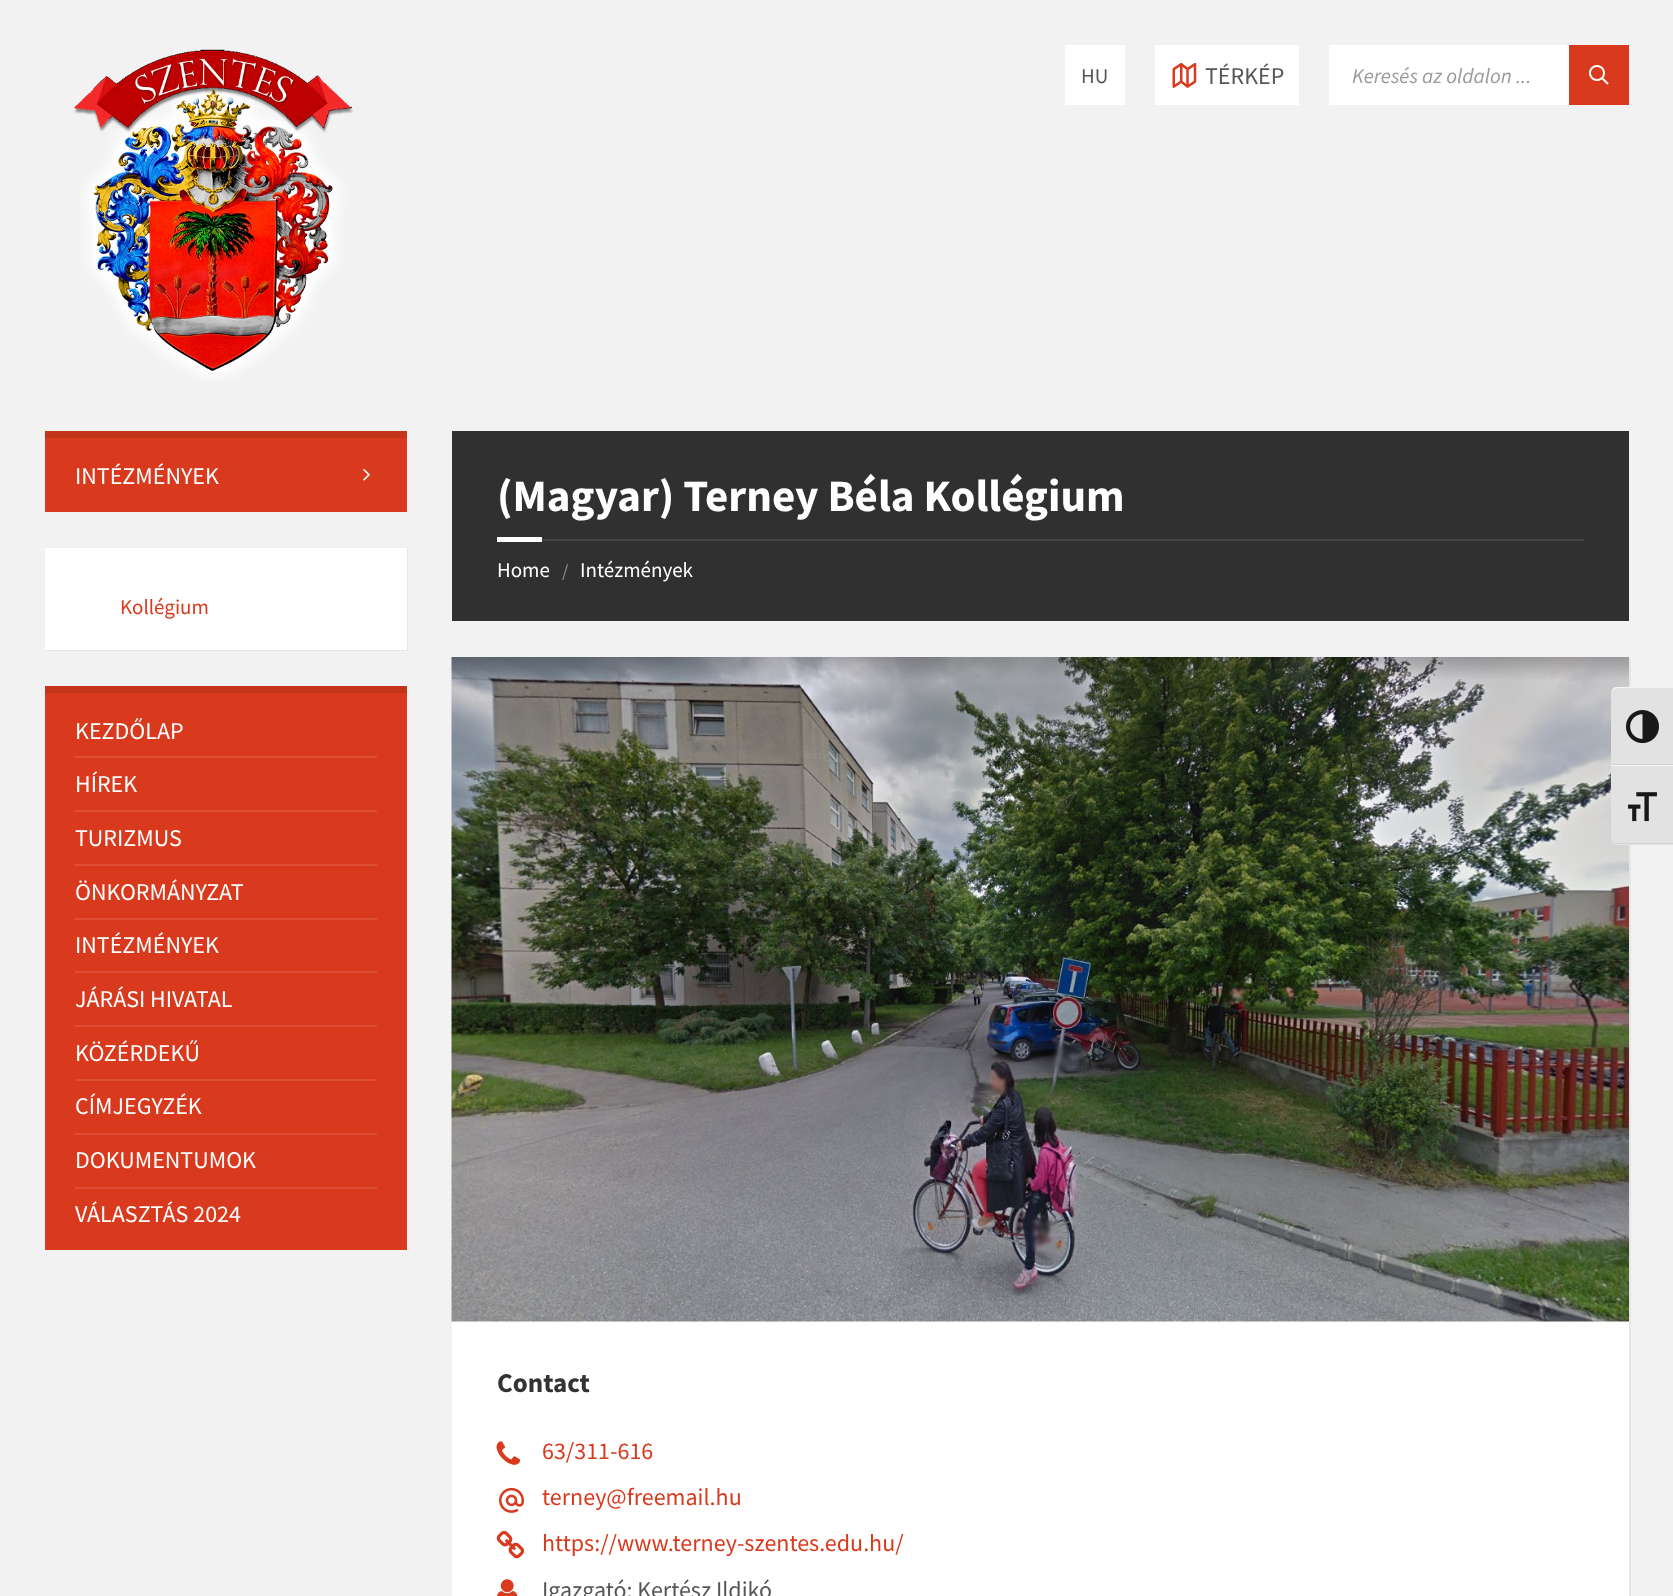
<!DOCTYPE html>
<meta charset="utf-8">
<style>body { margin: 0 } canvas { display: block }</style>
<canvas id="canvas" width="1673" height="1596"></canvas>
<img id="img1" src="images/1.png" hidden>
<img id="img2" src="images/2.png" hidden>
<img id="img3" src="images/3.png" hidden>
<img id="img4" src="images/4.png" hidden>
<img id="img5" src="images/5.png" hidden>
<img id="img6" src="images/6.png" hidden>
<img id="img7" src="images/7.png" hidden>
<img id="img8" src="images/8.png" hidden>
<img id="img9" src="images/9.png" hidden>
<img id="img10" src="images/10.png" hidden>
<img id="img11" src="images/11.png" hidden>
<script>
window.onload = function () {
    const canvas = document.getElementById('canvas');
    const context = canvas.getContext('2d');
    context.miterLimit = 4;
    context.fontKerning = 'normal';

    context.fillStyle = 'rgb(242, 242, 242)';
    context.fillRect(0, 0, 1673, 1596);
    context.drawImage(document.getElementById('img1'), 74, 49, 280, 332);
    context.fillStyle = 'rgb(255, 255, 255)';
    context.fillRect(1065, 45, 60, 60);
    context.fillRect(1155, 45, 144, 60);
    context.drawImage(document.getElementById('img2'), 1172, 62, 25, 26);
    context.fillRect(1329, 45, 240, 60);
    context.fillStyle = 'rgb(217, 58, 30)';
    context.fillRect(1569, 45, 60, 60);
    context.drawImage(document.getElementById('img3'), 1589, 65, 20, 20);
    context.fillRect(45, 438, 362, 74);
    context.fillStyle = 'rgb(195, 52, 27)';
    context.fillRect(45, 431, 362, 7);
    context.drawImage(document.getElementById('img4'), 363, 469, 7, 12);
    context.fillStyle = 'rgb(230, 230, 230)';
    context.beginPath();
    context.moveTo(47, 650);
    context.lineTo(47, 651);
    context.lineTo(408, 651);
    context.lineTo(408, 549);
    context.lineTo(406, 549);
    context.lineTo(406, 650);
    context.closePath();
    context.fill();
    context.fillStyle = 'rgb(255, 255, 255)';
    context.fillRect(45, 548, 362, 102);
    context.fillStyle = 'rgb(217, 58, 30)';
    context.fillRect(45, 693, 362, 557);
    context.fillStyle = 'rgb(195, 52, 27)';
    context.fillRect(45, 686, 362, 7);
    context.fillStyle = 'rgb(221, 78, 53)';
    context.fillRect(75, 756, 302, 2);
    context.fillRect(75, 810, 302, 2);
    context.fillRect(75, 864, 302, 2);
    context.fillRect(75, 918, 302, 2);
    context.fillRect(75, 971, 302, 2);
    context.fillRect(75, 1025, 302, 2);
    context.fillRect(75, 1079, 302, 2);
    context.fillRect(75, 1133, 302, 2);
    context.fillRect(75, 1187, 302, 2);
    context.fillStyle = 'rgb(48, 48, 48)';
    context.fillRect(452, 431, 1177, 190);
    context.fillStyle = 'rgb(69, 69, 69)';
    context.fillRect(542, 539, 1042, 2);
    context.fillStyle = 'rgb(255, 255, 255)';
    context.fillRect(497, 537, 45, 5);
    context.fillStyle = 'rgb(230, 230, 230)';
    context.beginPath();
    context.moveTo(453, 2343);
    context.lineTo(453, 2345);
    context.lineTo(1631, 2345);
    context.lineTo(1631, 659);
    context.lineTo(1629, 659);
    context.lineTo(1629, 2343);
    context.closePath();
    context.fill();
    context.fillStyle = 'rgb(255, 255, 255)';
    context.fillRect(452, 1321, 1177, 275);
    context.drawImage(document.getElementById('img5'), 451, 657, 1178, 665);
    context.drawImage(document.getElementById('img6'), 496, 1441, 25, 24);
    context.drawImage(document.getElementById('img7'), 499, 1487, 25, 26);
    context.drawImage(document.getElementById('img8'), 496, 1530, 29, 29);
    context.drawImage(document.getElementById('img9'), 497, 1579, 21, 17);
    context.fillStyle = 'rgb(226, 226, 226)';
    context.beginPath();
    context.moveTo(1617, 687);
    context.lineTo(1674, 687);
    context.lineTo(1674, 765);
    context.lineTo(1611, 765);
    context.lineTo(1611, 693);
    context.bezierCurveTo(1611, 689.5, 1613.5, 687, 1617, 687);
    context.closePath();
    context.fill();
    context.fillStyle = 'rgb(245, 245, 245)';
    context.beginPath();
    context.moveTo(1617, 688);
    context.lineTo(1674, 688);
    context.lineTo(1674, 687);
    context.lineTo(1617, 687);
    context.bezierCurveTo(1614, 687, 1611, 690, 1611, 693);
    context.bezierCurveTo(1611, 691, 1614, 688, 1617, 688);
    context.closePath();
    context.fill();
    context.fillStyle = 'rgb(210, 210, 210)';
    context.fillRect(1611, 764, 62, 1);
    context.drawImage(document.getElementById('img10'), 1626, 710, 33, 34);
    context.fillStyle = 'rgb(226, 226, 226)';
    context.beginPath();
    context.moveTo(1611, 765);
    context.lineTo(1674, 765);
    context.lineTo(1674, 845);
    context.lineTo(1617, 845);
    context.bezierCurveTo(1613.5, 845, 1611, 842.5, 1611, 839);
    context.closePath();
    context.fill();
    context.fillStyle = 'rgb(245, 245, 245)';
    context.fillRect(1611, 765, 62, 1);
    context.fillStyle = 'rgb(210, 210, 210)';
    context.beginPath();
    context.moveTo(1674, 844);
    context.lineTo(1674, 843);
    context.lineTo(1617, 843);
    context.bezierCurveTo(1614, 843, 1611, 841, 1611, 838);
    context.bezierCurveTo(1611, 842, 1614, 844, 1617, 844);
    context.closePath();
    context.fill();
    context.drawImage(document.getElementById('img11'), 1628, 792, 29, 30);
    context.font = '21px Source Sans Pro';
    context.fillStyle = 'rgb(86, 86, 86)';
    context.fillText('HU', 1081, 83);
    context.font = '24px Source Sans Pro';
    context.fillText('TÉRKÉP', 1205, 84);
    context.font = 'italic 21px Source Sans Pro';
    context.fillStyle = 'rgb(154, 154, 154)';
    context.fillText('Keresés az oldalon ...', 1352, 83);
    context.font = '24px Source Sans Pro';
    context.fillStyle = 'rgb(255, 255, 255)';
    context.fillText('INTÉZMÉNYEK', 75, 484);
    context.font = '21px Source Sans Pro';
    context.fillStyle = 'rgb(217, 58, 30)';
    context.fillText('Kollégium', 120, 614);
    context.font = '24px Source Sans Pro';
    context.fillStyle = 'rgb(255, 255, 255)';
    context.fillText('KEZDŐLAP', 75, 739);
    context.fillText('HÍREK', 75, 792);
    context.fillText('TURIZMUS', 75, 846);
    context.fillText('ÖNKORMÁNYZAT', 75, 900);
    context.fillText('INTÉZMÉNYEK', 75, 953);
    context.fillText('JÁRÁSI HIVATAL', 75, 1007);
    context.fillText('KÖZÉRDEKŰ', 75, 1061);
    context.fillText('CÍMJEGYZÉK', 75, 1114);
    context.fillText('DOKUMENTUMOK', 75, 1168);
    context.fillText('VÁLASZTÁS 2024', 75, 1222);
    context.font = 'bold 45px Source Sans Pro';
    context.fillText('(Magyar) Terney Béla Kollégium', 497, 511);
    context.font = '21px Source Sans Pro';
    context.fillText('Home', 497, 577);
    context.font = '18px Source Sans Pro';
    context.fillStyle = 'rgb(138, 148, 155)';
    context.fillText('/', 562, 577);
    context.font = '21px Source Sans Pro';
    context.fillStyle = 'rgb(255, 255, 255)';
    context.fillText('Intézmények', 580, 577);
    context.font = 'bold 27px Source Sans Pro';
    context.fillStyle = 'rgb(51, 51, 51)';
    context.fillText('Contact', 497, 1392);
    context.font = '24px Source Sans Pro';
    context.fillStyle = 'rgb(217, 58, 30)';
    context.fillText('63/311-616', 542, 1459);
    context.fillText('terney@freemail.hu', 542, 1505);
    context.fillText('https://www.terney-szentes.edu.hu/', 542, 1551);
    context.fillStyle = 'rgb(86, 86, 86)';
    context.fillText('Igazgató: Kertész Ildikó', 542, 1598);
};
</script>
